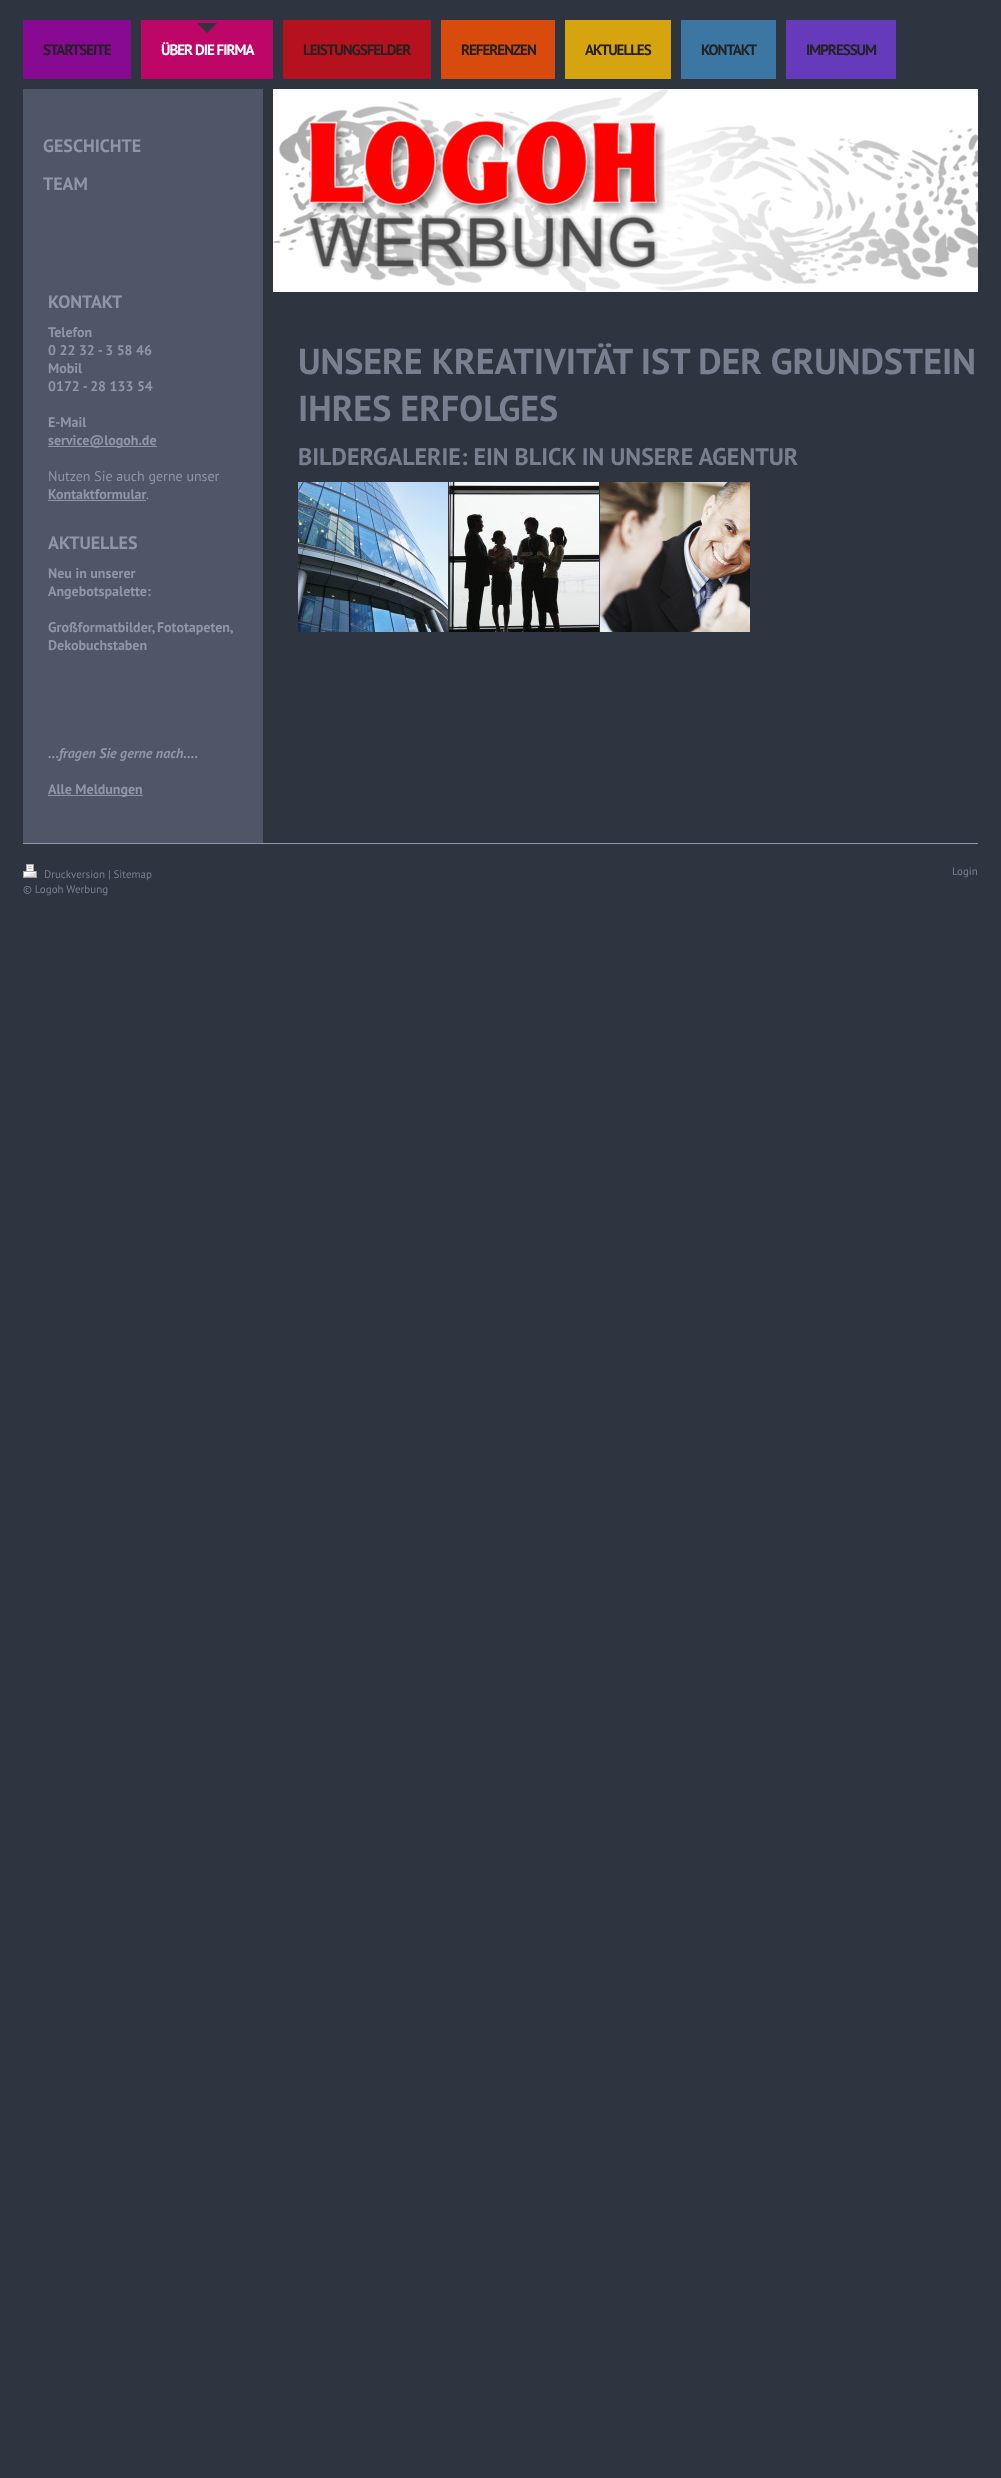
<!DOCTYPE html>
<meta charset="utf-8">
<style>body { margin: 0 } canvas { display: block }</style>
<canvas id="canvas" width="1001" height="2478"></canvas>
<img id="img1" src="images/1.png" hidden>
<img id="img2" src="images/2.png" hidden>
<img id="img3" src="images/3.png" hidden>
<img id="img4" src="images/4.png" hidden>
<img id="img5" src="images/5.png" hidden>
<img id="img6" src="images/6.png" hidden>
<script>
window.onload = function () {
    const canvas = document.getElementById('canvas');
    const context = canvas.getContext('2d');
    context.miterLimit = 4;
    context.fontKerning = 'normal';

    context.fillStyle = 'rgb(46, 52, 64)';
    context.fillRect(0, 0, 1001, 2478);
    context.fillStyle = 'rgb(136, 10, 147)';
    context.fillRect(23, 20, 108, 59);
    context.fillStyle = 'rgb(190, 6, 105)';
    context.fillRect(141, 20, 132, 59);
    context.drawImage(document.getElementById('img1'), 197, 23, 20, 10);
    context.fillStyle = 'rgb(182, 17, 30)';
    context.fillRect(283, 20, 148, 59);
    context.fillStyle = 'rgb(217, 75, 13)';
    context.fillRect(441, 20, 114, 59);
    context.fillStyle = 'rgb(213, 164, 14)';
    context.fillRect(565, 20, 106, 59);
    context.fillStyle = 'rgb(60, 118, 163)';
    context.fillRect(681, 20, 95, 59);
    context.fillStyle = 'rgb(101, 59, 188)';
    context.fillRect(786, 20, 110, 59);
    context.fillStyle = 'rgb(78, 86, 103)';
    context.fillRect(23, 89, 240, 754);
    context.fillStyle = 'rgb(143, 151, 167)';
    context.fillRect(48, 446, 109, 1);
    context.fillRect(48, 500, 98, 1);
    context.fillRect(48, 795, 95, 1);
    context.drawImage(document.getElementById('img2'), 273, 89, 705, 203);
    context.drawImage(document.getElementById('img3'), 298, 482, 150, 150);
    context.drawImage(document.getElementById('img4'), 449, 482, 150, 150);
    context.drawImage(document.getElementById('img5'), 600, 482, 150, 150);
    context.fillRect(23, 843, 955, 1);
    context.drawImage(document.getElementById('img6'), 23, 864, 14, 14);
    context.letterSpacing = '-1px';
    context.font = 'bold 15px PT Sans';
    context.fillStyle = 'rgb(34, 34, 34)';
    context.fillText('STARTSEITE', 43, 55);
    context.fillStyle = 'rgb(255, 255, 255)';
    context.fillText('ÜBER DIE FIRMA', 161, 55);
    context.fillStyle = 'rgb(34, 34, 34)';
    context.fillText('LEISTUNGSFELDER', 303, 55);
    context.fillText('REFERENZEN', 461, 55);
    context.fillText('AKTUELLES', 585, 55);
    context.fillText('KONTAKT', 701, 55);
    context.fillText('IMPRESSUM', 806, 55);
    context.letterSpacing = '0px';
    context.font = 'bold 18px PT Sans';
    context.fillStyle = 'rgb(143, 151, 167)';
    context.fillText('GESCHICHTE', 43, 152);
    context.fillText('TEAM', 43, 190);
    context.fillText('KONTAKT', 48, 308);
    context.font = 'bold 14px PT Sans';
    context.fillText('Telefon', 48, 337);
    context.fillText('0 22 32 - 3 58 46', 48, 355);
    context.fillText('Mobil', 48, 373);
    context.fillText('0172 - 28 133 54', 48, 391);
    context.fillText('E-Mail', 48, 427);
    context.fillText('service@logoh.de', 48, 445);
    context.font = '14px PT Sans';
    context.fillText('Nutzen Sie auch gerne unser', 48, 481);
    context.font = 'bold 14px PT Sans';
    context.fillText('Kontaktformular', 48, 499);
    context.font = '14px PT Sans';
    context.fillText('.', 146, 499);
    context.font = 'bold 18px PT Sans';
    context.fillText('AKTUELLES', 48, 549);
    context.font = 'bold 14px PT Sans';
    context.fillText('Neu in unserer', 48, 578);
    context.fillText('Angebotspalette:', 48, 596);
    context.wordSpacing = '-1px';
    context.fillText('Großformatbilder, Fototapeten,', 48, 632);
    context.wordSpacing = '0px';
    context.fillText('Dekobuchstaben', 48, 650);
    context.font = 'italic bold 14px PT Sans';
    context.fillText('...fragen Sie gerne nach....', 48, 758);
    context.font = 'bold 14px PT Sans';
    context.fillText('Alle Meldungen', 48, 794);
    context.font = 'bold 36px PT Sans';
    context.fillStyle = 'rgb(120, 127, 142)';
    context.fillText('UNSERE KREATIVITÄT IST DER GRUNDSTEIN', 298, 374);
    context.fillText('IHRES ERFOLGES', 298, 421);
    context.font = 'bold 24px PT Sans';
    context.fillText('BILDERGALERIE: EIN BLICK IN UNSERE AGENTUR', 298, 465);
    context.font = '11px PT Sans';
    context.fillText('Druckversion | Sitemap', 44, 878);
    context.fillText('© Logoh Werbung', 23, 893);
    context.fillText('Login', 952, 875);
};
</script>
